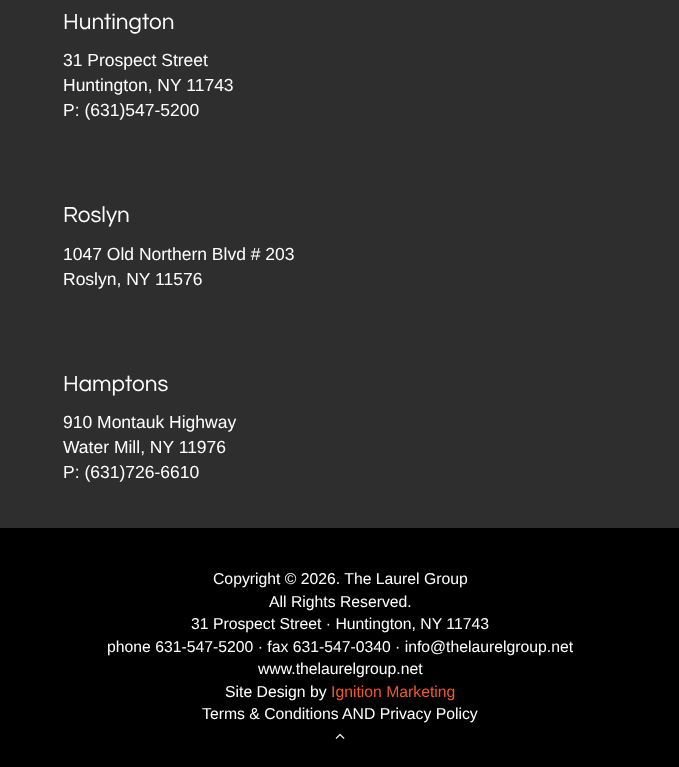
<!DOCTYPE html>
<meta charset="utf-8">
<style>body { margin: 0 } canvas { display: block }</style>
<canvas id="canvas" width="679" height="767"></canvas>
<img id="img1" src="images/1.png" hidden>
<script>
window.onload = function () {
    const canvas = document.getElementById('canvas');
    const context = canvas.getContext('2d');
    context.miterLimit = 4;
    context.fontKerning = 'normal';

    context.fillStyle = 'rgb(46, 46, 46)';
    context.fillRect(0, 0, 679, 767);
    context.fillStyle = 'rgb(0, 0, 0)';
    context.fillRect(0, 528, 679, 239);
    context.drawImage(document.getElementById('img1'), 335, 733, 10, 6);
    context.font = '22.5px Questrial';
    context.fillStyle = 'rgb(255, 255, 255)';
    context.fillText('Huntington', 63, 29);
    context.font = '17.5px Liberation Sans';
    context.fillText('31 Prospect Street', 63, 66);
    context.fillText('Huntington, NY 11743', 63, 91);
    context.fillText('P: (631)547-5200', 63, 116);
    context.font = '22.5px Questrial';
    context.fillText('Roslyn', 63, 222);
    context.font = '17.5px Liberation Sans';
    context.fillText('1047 Old Northern Blvd # 203', 63, 260);
    context.fillText('Roslyn, NY 11576', 63, 285);
    context.font = '22.5px Questrial';
    context.fillText('Hamptons', 63, 391);
    context.font = '17.5px Liberation Sans';
    context.fillText('910 Montauk Highway', 63, 428);
    context.fillText('Water Mill, NY 11976', 63, 453);
    context.fillText('P: (631)726-6610', 63, 478);
    context.font = '15.75px Liberation Sans';
    context.fillText('Copyright © 2026. The Laurel Group', 213, 584);
    context.fillText('All Rights Reserved.', 269, 607);
    context.fillText('31 Prospect Street · Huntington, NY 11743', 191, 629);
    context.fillText('phone 631-547-5200 · fax 631-547-0340 · info@thelaurelgroup.net', 107, 652);
    context.fillText('www.thelaurelgroup.net', 258, 674);
    context.fillText('Site Design by', 225, 697);
    context.fillStyle = 'rgb(241, 90, 41)';
    context.fillText('Ignition Marketing', 331, 697);
    context.fillStyle = 'rgb(255, 255, 255)';
    context.fillText('Terms & Conditions', 202, 719);
    context.fillText('AND Privacy Policy', 342, 719);
};
</script>
